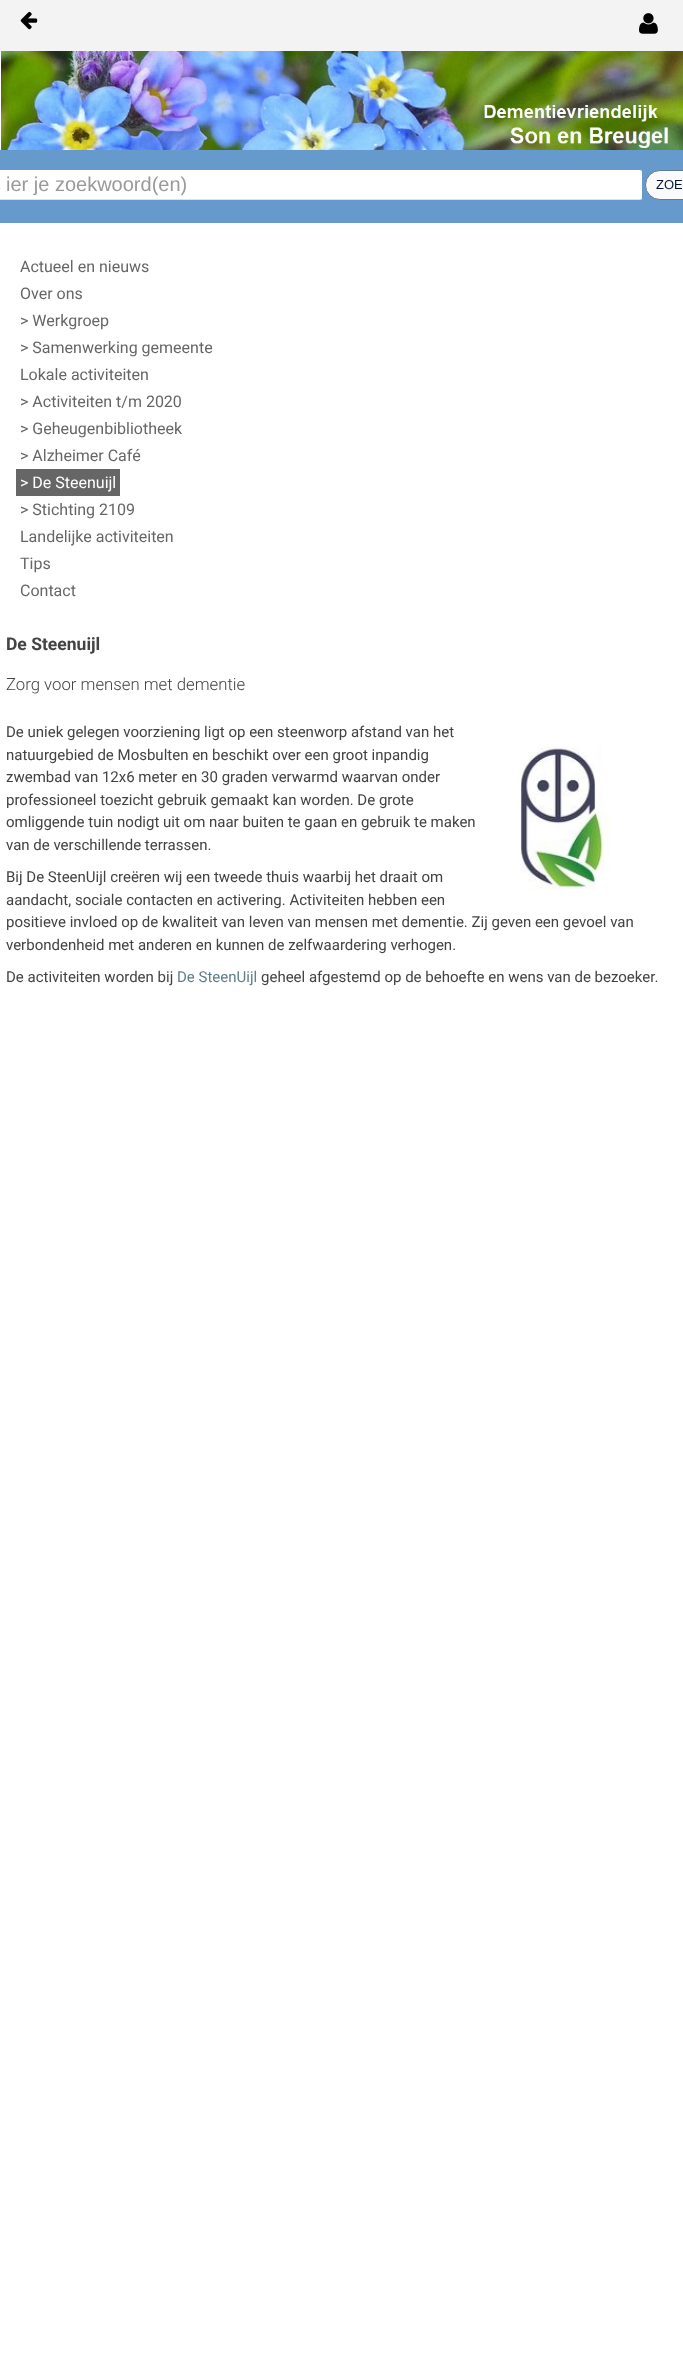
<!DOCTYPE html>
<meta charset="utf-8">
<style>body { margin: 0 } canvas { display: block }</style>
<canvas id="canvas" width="683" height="2380"></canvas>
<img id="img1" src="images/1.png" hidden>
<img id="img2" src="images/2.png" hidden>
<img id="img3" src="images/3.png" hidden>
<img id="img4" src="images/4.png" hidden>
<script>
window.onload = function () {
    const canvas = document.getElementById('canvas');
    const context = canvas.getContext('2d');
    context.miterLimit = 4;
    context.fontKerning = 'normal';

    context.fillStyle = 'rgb(255, 255, 255)';
    context.fillRect(0, 0, 683, 2380);
    context.fillStyle = 'rgb(243, 243, 243)';
    context.fillRect(0, 0, 683, 51);
    context.drawImage(document.getElementById('img1'), 20, 11, 18, 19);
    context.drawImage(document.getElementById('img2'), 639, 13, 19, 21);
    context.drawImage(document.getElementById('img3'), 1, 51, 682, 99);
    context.fillStyle = 'rgb(102, 153, 204)';
    context.fillRect(0, 150, 683, 73);
    context.fillStyle = 'rgb(255, 255, 255)';
    context.beginPath();
    context.roundRect(-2, 170, 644, 30, 2);
    context.fill();
    context.fillStyle = 'rgba(12, 12, 12, 0.12)';
    context.fillRect(0, 199, 641, 1);
    context.fillStyle = 'rgb(250, 250, 250)';
    context.beginPath();
    context.roundRect(645.5, 170.5, 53, 29, 14.5);
    context.fill();
    context.strokeStyle = 'rgb(96, 125, 139)';
    context.stroke();
    context.fillStyle = 'rgb(102, 102, 102)';
    context.fillRect(16, 469, 104, 27);
    context.drawImage(document.getElementById('img4'), 517, 744, 94, 146);
    context.font = '20px Liberation Sans';
    context.fillStyle = 'rgb(153, 153, 153)';
    context.fillText('ier je zoekwoord(en)', 6, 191);
    context.font = '13px Liberation Sans';
    context.fillStyle = 'rgb(0, 20, 50)';
    context.fillText('ZOE', 656, 189);
    context.font = '16px Roboto';
    context.fillStyle = 'rgb(102, 102, 102)';
    context.fillText('Actueel en nieuws', 20, 272);
    context.fillText('Over ons', 20, 299);
    context.fillText('> Werkgroep', 20, 326);
    context.fillText('> Samenwerking gemeente', 20, 353);
    context.fillText('Lokale activiteiten', 20, 380);
    context.fillText('> Activiteiten t/m 2020', 20, 407);
    context.fillText('> Geheugenbibliotheek', 20, 434);
    context.fillText('> Alzheimer Café', 20, 461);
    context.fillStyle = 'rgb(255, 255, 255)';
    context.fillText('> De Steenuijl', 20, 488);
    context.fillStyle = 'rgb(102, 102, 102)';
    context.fillText('> Stichting 2109', 20, 515);
    context.fillText('Landelijke activiteiten', 20, 542);
    context.fillText('Tips', 20, 569);
    context.fillText('Contact', 20, 596);
    context.font = 'bold 17.5px Roboto';
    context.fillStyle = 'rgb(67, 67, 67)';
    context.fillText('De Steenuijl', 6, 650);
    context.font = '300 16.75px Roboto';
    context.fillText('Zorg voor mensen met dementie', 6, 690);
    context.font = '15px Roboto';
    context.fillText('De uniek gelegen voorziening ligt op een steenworp afstand van het', 6, 737);
    context.fillText('natuurgebied de Mosbulten en beschikt over een groot inpandig', 6, 760);
    context.fillText('zwembad van 12x6 meter en 30 graden verwarmd waarvan onder', 6, 782);
    context.fillText('professioneel toezicht gebruik gemaakt kan worden. De grote', 6, 805);
    context.fillText('omliggende tuin nodigt uit om naar buiten te gaan en gebruik te maken', 6, 827);
    context.fillText('van de verschillende terrassen.', 6, 850);
    context.fillText('Bij De SteenUijl creëren wij een tweede thuis waarbij het draait om', 6, 882);
    context.fillText('aandacht, sociale contacten en activering. Activiteiten hebben een', 6, 905);
    context.fillText('positieve invloed op de kwaliteit van leven van mensen met dementie. Zij geven een gevoel van', 6, 927);
    context.fillText('verbondenheid met anderen en kunnen de zelfwaardering verhogen.', 6, 950);
    context.fillText('De activiteiten worden bij', 6, 982);
    context.fillStyle = 'rgb(96, 125, 139)';
    context.fillText('De SteenUijl', 177, 982);
    context.fillStyle = 'rgb(67, 67, 67)';
    context.fillText('geheel afgestemd op de behoefte en wens van de bezoeker.', 261, 982);
};
</script>
